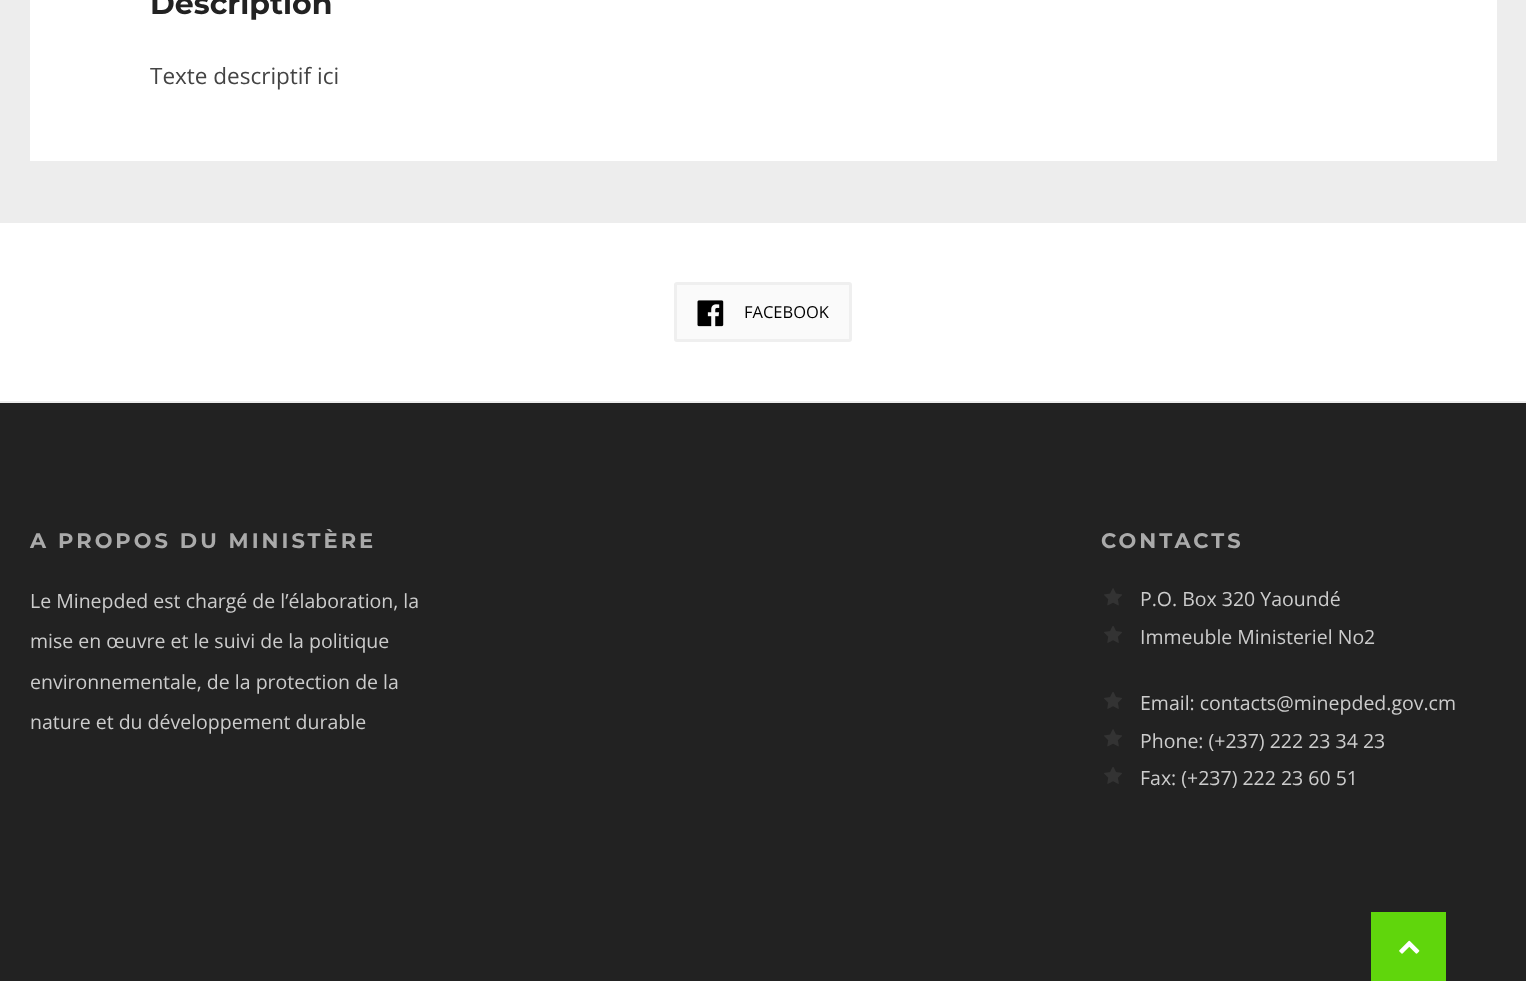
<!DOCTYPE html>
<meta charset="utf-8">
<style>body { margin: 0 } canvas { display: block }</style>
<canvas id="canvas" width="1526" height="981"></canvas>
<img id="img1" src="images/1.png" hidden>
<img id="img2" src="images/2.png" hidden>
<img id="img3" src="images/3.png" hidden>
<img id="img4" src="images/4.png" hidden>
<script>
window.onload = function () {
    const canvas = document.getElementById('canvas');
    const context = canvas.getContext('2d');
    context.miterLimit = 4;
    context.fontKerning = 'normal';

    context.fillStyle = 'rgb(237, 237, 237)';
    context.fillRect(0, 0, 1526, 981);
    context.fillStyle = 'rgb(255, 255, 255)';
    context.fillRect(30, 0, 1467, 161);
    context.fillRect(0, 223, 1526, 178);
    context.fillStyle = 'rgb(250, 250, 250)';
    context.beginPath();
    context.roundRect(675.5, 283.5, 175, 57, 1.5);
    context.fill();
    context.strokeStyle = 'rgb(239, 239, 239)';
    context.lineWidth = 3;
    context.stroke();
    context.drawImage(document.getElementById('img1'), 697, 300, 27, 27);
    context.fillStyle = 'rgb(34, 34, 34)';
    context.fillRect(0, 403, 1526, 578);
    context.drawImage(document.getElementById('img2'), 1104, 588, 18, 18);
    context.drawImage(document.getElementById('img3'), 1104, 626, 18, 17);
    context.drawImage(document.getElementById('img3'), 1104, 692, 18, 17);
    context.drawImage(document.getElementById('img2'), 1104, 729, 18, 18);
    context.drawImage(document.getElementById('img3'), 1104, 767, 18, 17);
    context.fillStyle = 'rgb(96, 214, 12)';
    context.fillRect(1371, 912, 75, 69);
    context.drawImage(document.getElementById('img4'), 1399, 940, 21, 14);
    context.font = 'bold 30px Montserrat';
    context.fillStyle = 'rgb(34, 34, 34)';
    context.fillText('Description', 150, 14);
    context.font = '22.5px Open Sans';
    context.fillStyle = 'rgb(68, 68, 68)';
    context.fillText('Texte descriptif ici', 150, 84);
    context.font = '16.5px Open Sans';
    context.fillStyle = 'rgb(0, 0, 0)';
    context.fillText('FACEBOOK', 744, 318);
    context.letterSpacing = '3px';
    context.font = 'bold 21px Montserrat';
    context.fillStyle = 'rgb(170, 170, 170)';
    context.fillText('A PROPOS DU MINISTÈRE', 30, 548);
    context.letterSpacing = '0px';
    context.font = '19.5px Open Sans';
    context.fillStyle = 'rgb(204, 204, 204)';
    context.fillText('Le Minepded est chargé de l’élaboration, la', 30, 608);
    context.fillText('mise en œuvre et le suivi de la politique', 30, 648);
    context.fillText('environnementale, de la protection de la', 30, 689);
    context.fillText('nature et du développement durable', 30, 729);
    context.letterSpacing = '3px';
    context.font = 'bold 21px Montserrat';
    context.fillStyle = 'rgb(170, 170, 170)';
    context.fillText('CONTACTS', 1101, 548);
    context.letterSpacing = '0px';
    context.font = '19.5px Open Sans';
    context.fillStyle = 'rgb(204, 204, 204)';
    context.fillText('P.O. Box 320 Yaoundé', 1140, 606);
    context.fillText('Immeuble Ministeriel No2', 1140, 644);
    context.fillText('Email: contacts@minepded.gov.cm', 1140, 710);
    context.fillText('Phone: (+237) 222 23 34 23', 1140, 748);
    context.fillText('Fax: (+237) 222 23 60 51', 1140, 785);
};
</script>
